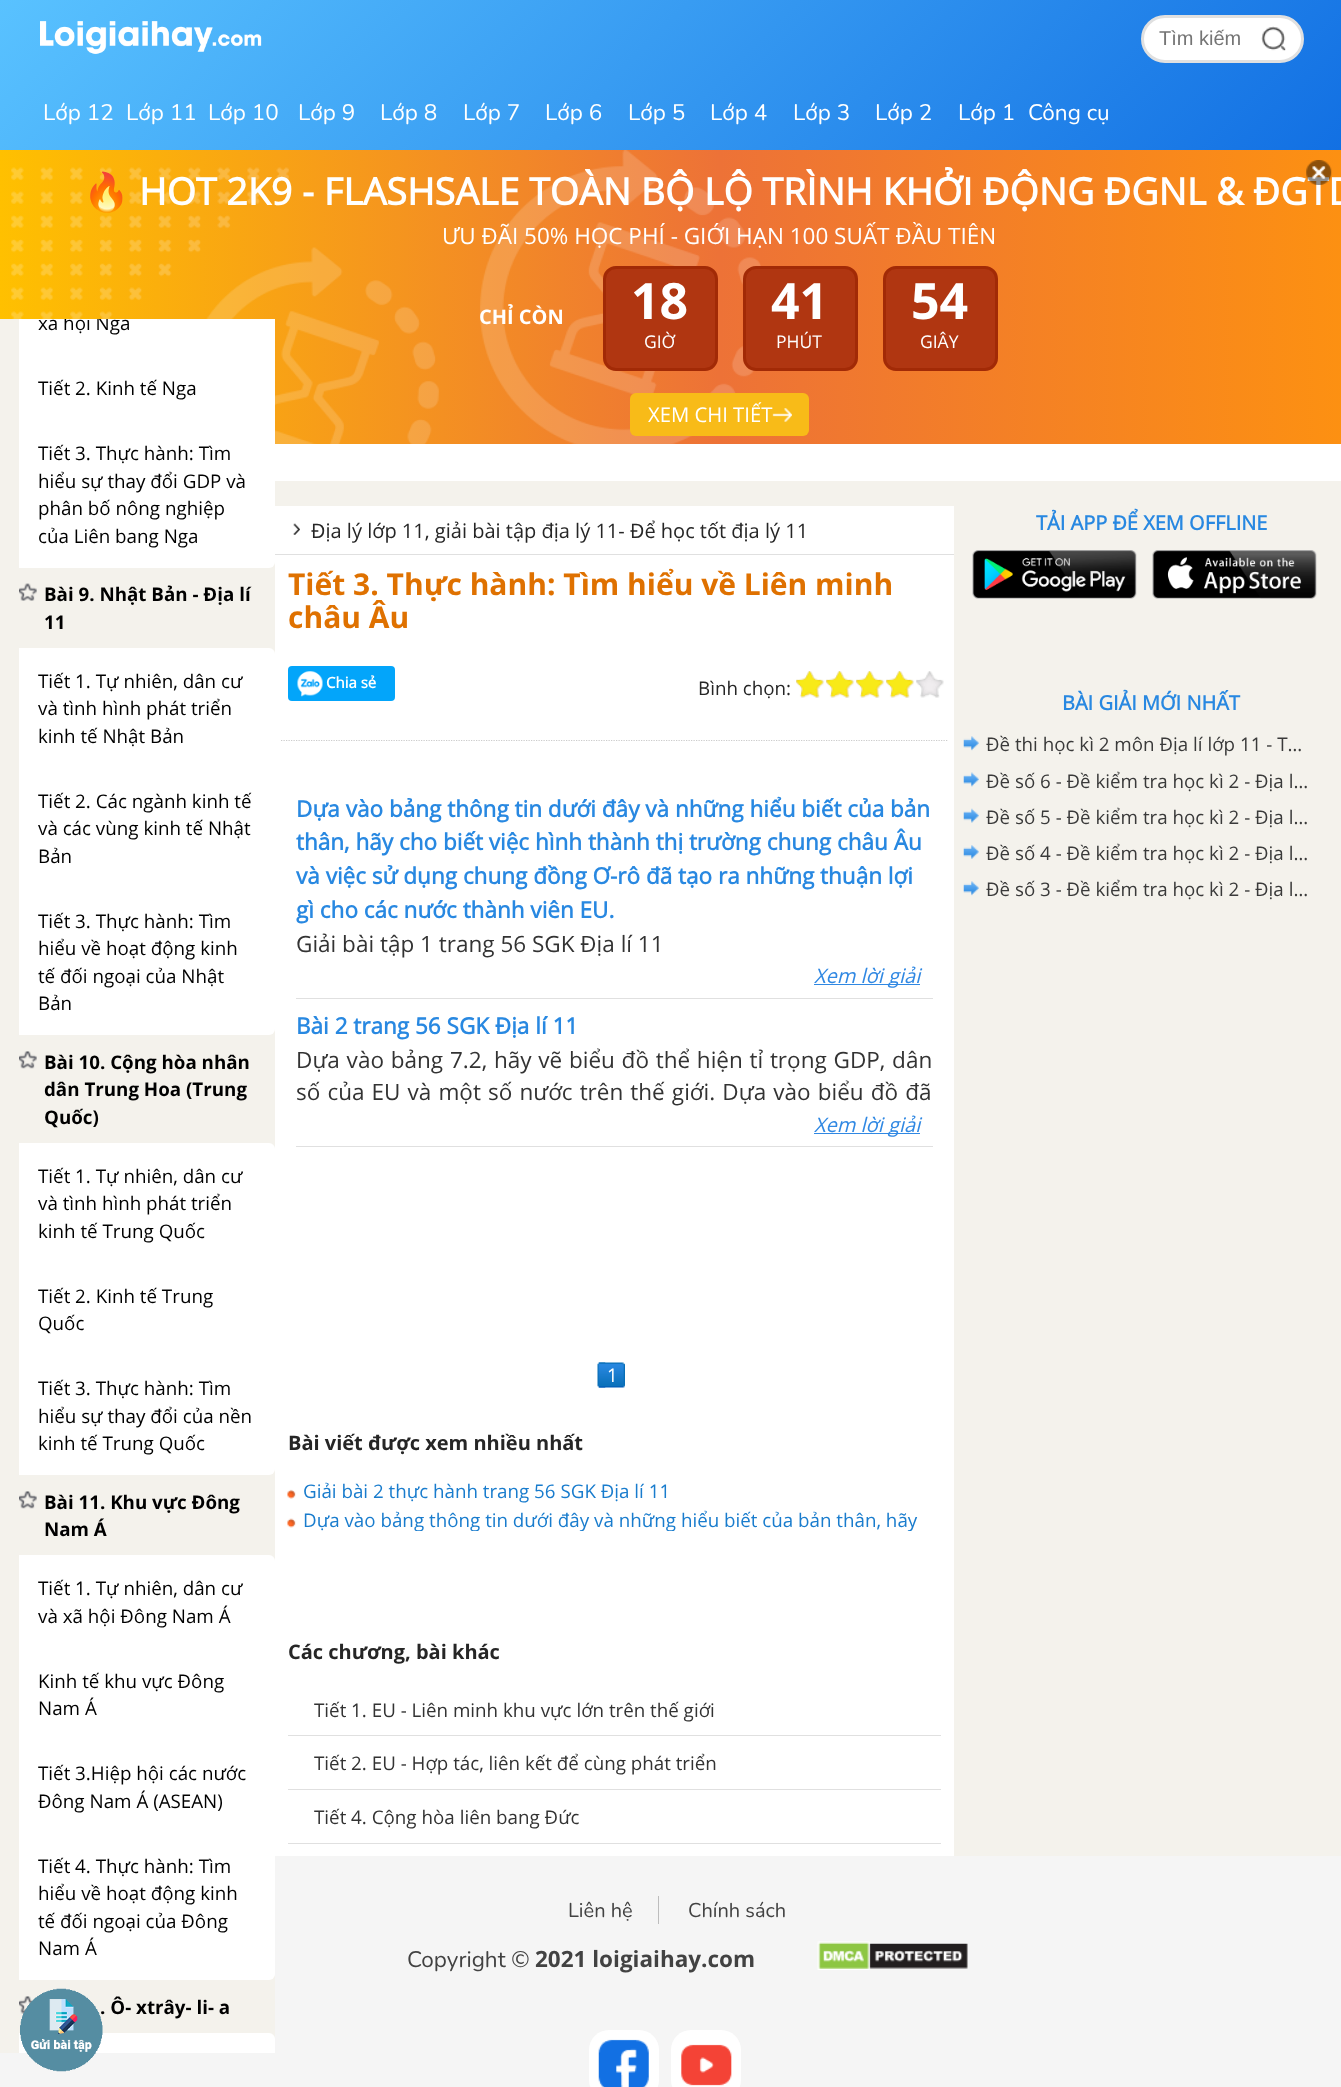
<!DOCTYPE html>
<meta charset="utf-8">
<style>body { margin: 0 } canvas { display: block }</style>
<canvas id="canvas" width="1341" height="2087"></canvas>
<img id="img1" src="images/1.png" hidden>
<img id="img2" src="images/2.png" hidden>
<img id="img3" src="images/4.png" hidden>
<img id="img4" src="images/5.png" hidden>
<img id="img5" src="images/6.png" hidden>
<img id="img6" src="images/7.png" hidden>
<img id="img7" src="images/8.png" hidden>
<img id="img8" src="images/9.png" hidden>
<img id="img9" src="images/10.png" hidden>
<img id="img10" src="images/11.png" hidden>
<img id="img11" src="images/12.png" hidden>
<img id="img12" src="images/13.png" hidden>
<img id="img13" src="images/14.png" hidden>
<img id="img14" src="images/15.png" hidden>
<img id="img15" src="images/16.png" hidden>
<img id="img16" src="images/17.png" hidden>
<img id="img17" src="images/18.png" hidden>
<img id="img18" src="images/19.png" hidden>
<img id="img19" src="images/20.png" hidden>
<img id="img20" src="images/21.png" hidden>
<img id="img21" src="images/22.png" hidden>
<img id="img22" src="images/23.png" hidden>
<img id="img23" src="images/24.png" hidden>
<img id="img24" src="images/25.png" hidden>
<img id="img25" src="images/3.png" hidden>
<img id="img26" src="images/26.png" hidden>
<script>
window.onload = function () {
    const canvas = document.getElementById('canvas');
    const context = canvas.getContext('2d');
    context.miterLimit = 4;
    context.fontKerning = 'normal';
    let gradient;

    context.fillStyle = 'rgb(255, 255, 255)';
    context.fillRect(0, 0, 1341, 2087);
    gradient = context.createLinearGradient(1043, 448, 298, -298);
    gradient.addColorStop(0, 'rgb(18, 112, 227)');
    gradient.addColorStop(1, 'rgb(89, 194, 255)');
    context.fillStyle = gradient;
    context.fillRect(0, 0, 1341, 150);
    context.drawImage(document.getElementById('img1'), 40, 21, 222, 33);
    context.fillStyle = 'rgb(255, 255, 255)';
    context.beginPath();
    context.roundRect(1142.5, 16.5, 160, 45, 22.5);
    context.fill();
    context.strokeStyle = 'rgb(224, 224, 224)';
    context.lineWidth = 3;
    context.stroke();
    context.drawImage(document.getElementById('img2'), 1261, 26, 25, 25);
    gradient = context.createLinearGradient(0, 297, 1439, 297);
    gradient.addColorStop(0, 'rgb(255, 192, 0)');
    gradient.addColorStop(0.5, 'rgb(237, 114, 55)');
    gradient.addColorStop(1, 'rgb(255, 149, 12)');
    context.fillStyle = gradient;
    context.fillRect(0, 150, 1341, 294);
    context.drawImage(document.getElementById('img3'), 11, 150, 750, 294);
    context.fillStyle = 'rgb(176, 54, 17)';
    context.beginPath();
    context.roundRect(604.5, 267.5, 112, 102, 11.5);
    context.fill();
    context.strokeStyle = 'rgb(162, 42, 6)';
    context.stroke();
    context.beginPath();
    context.roundRect(744.5, 267.5, 112, 102, 11.5);
    context.fill();
    context.stroke();
    context.beginPath();
    context.roundRect(884.5, 267.5, 112, 102, 11.5);
    context.fill();
    context.stroke();
    context.fillStyle = 'rgb(248, 187, 24)';
    context.beginPath();
    context.roundRect(630, 393, 179, 43, 6);
    context.fill();
    context.drawImage(document.getElementById('img4'), 772, 408, 20, 14);
    context.fillStyle = 'rgb(244, 242, 236)';
    context.fillRect(275, 481, 1066, 1375);
    context.fillStyle = 'rgb(245, 245, 245)';
    context.fillRect(0, 1856, 1341, 231);
    context.fillStyle = 'rgb(244, 242, 236)';
    context.fillRect(0, 319, 275, 1734);
    context.fillStyle = 'rgb(255, 255, 255)';
    context.fillRect(19, 319, 256, 101);
    context.beginPath();
    context.roundRect(19, 420, 256, 148, [0, 0, 6, 0]);
    context.fill();
    context.drawImage(document.getElementById('img5'), 19, 583, 18, 18);
    context.beginPath();
    context.roundRect(19, 648, 256, 120, [0, 6, 0, 0]);
    context.fill();
    context.fillRect(19, 768, 256, 120);
    context.beginPath();
    context.roundRect(19, 888, 256, 147, [0, 0, 6, 0]);
    context.fill();
    context.drawImage(document.getElementById('img6'), 19, 1051, 18, 18);
    context.beginPath();
    context.roundRect(19, 1143, 256, 120, [0, 6, 0, 0]);
    context.fill();
    context.fillRect(19, 1263, 256, 92);
    context.beginPath();
    context.roundRect(19, 1355, 256, 120, [0, 0, 6, 0]);
    context.fill();
    context.drawImage(document.getElementById('img6'), 19, 1491, 18, 18);
    context.beginPath();
    context.roundRect(19, 1555, 256, 93, [0, 6, 0, 0]);
    context.fill();
    context.fillRect(19, 1648, 256, 185);
    context.beginPath();
    context.roundRect(19, 1833, 256, 147, [0, 0, 6, 0]);
    context.fill();
    context.drawImage(document.getElementById('img7'), 19, 1996, 14, 18);
    context.beginPath();
    context.roundRect(19, 2033, 256, 20, [0, 6, 0, 0]);
    context.fill();
    context.fillRect(275, 506, 679, 1350);
    context.fillStyle = 'rgb(224, 224, 224)';
    context.fillRect(275, 554, 679, 1);
    context.drawImage(document.getElementById('img8'), 293, 523, 7, 12);
    context.beginPath();
    context.moveTo(281, 740.5);
    context.lineTo(947.5, 740.5);
    context.strokeStyle = 'rgb(204, 204, 204)';
    context.lineWidth = 1.2;
    context.setLineDash([1.25, 1.25]);
    context.stroke();
    context.fillStyle = 'rgb(3, 165, 250)';
    context.beginPath();
    context.roundRect(288, 666, 107, 35, 4);
    context.fill();
    context.drawImage(document.getElementById('img9'), 297, 671, 26, 26);
    context.drawImage(document.getElementById('img10'), 796, 671, 148, 27);
    context.drawImage(document.getElementById('img11'), 796, 671, 118, 27);
    context.fillStyle = 'rgb(224, 224, 224)';
    context.fillRect(296, 998, 637, 1);
    context.fillStyle = 'rgb(48, 136, 227)';
    context.fillRect(814, 984, 106, 1);
    context.fillStyle = 'rgb(224, 224, 224)';
    context.fillRect(296, 1146, 637, 1);
    context.fillStyle = 'rgb(48, 136, 227)';
    context.fillRect(814, 1133, 106, 1);
    context.drawImage(document.getElementById('img12'), 597, 1362, 9, 26);
    context.drawImage(document.getElementById('img13'), 598, 1362, 27, 26);
    context.drawImage(document.getElementById('img14'), 287, 1489, 9, 10);
    context.drawImage(document.getElementById('img15'), 287, 1518, 9, 10);
    context.fillStyle = 'rgb(224, 224, 224)';
    context.fillRect(288, 1735, 653, 1);
    context.fillRect(288, 1789, 653, 1);
    context.fillRect(288, 1843, 653, 1);
    context.drawImage(document.getElementById('img16'), 972, 550, 165, 49);
    context.drawImage(document.getElementById('img17'), 1152, 550, 165, 49);
    context.drawImage(document.getElementById('img18'), 963, 736, 16, 15);
    context.drawImage(document.getElementById('img19'), 963, 772, 16, 15);
    context.drawImage(document.getElementById('img20'), 963, 808, 16, 15);
    context.drawImage(document.getElementById('img21'), 963, 845, 16, 14);
    context.drawImage(document.getElementById('img18'), 963, 881, 16, 15);
    context.fillStyle = 'rgb(189, 189, 189)';
    context.fillRect(658, 1896, 1, 28);
    context.drawImage(document.getElementById('img22'), 817, 1941, 151, 29);
    context.fillStyle = 'rgb(255, 255, 255)';
    context.beginPath();
    context.roundRect(589, 2030, 70, 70, 20);
    context.fill();
    context.drawImage(document.getElementById('img23'), 598, 2039, 51, 48);
    context.beginPath();
    context.roundRect(671, 2030, 70, 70, 20);
    context.fill();
    context.drawImage(document.getElementById('img24'), 681, 2044, 51, 42);
    context.font = '20px Liberation Sans';
    context.fillStyle = 'rgb(117, 117, 117)';
    context.fillText('Tìm kiếm', 1159, 45);
    context.font = '22.5px Nunito';
    context.fillStyle = 'rgb(255, 255, 255)';
    context.fillText('Lớp 12', 43, 120);
    context.fillText('Lớp 11', 126, 120);
    context.fillText('Lớp 10', 208, 120);
    context.fillText('Lớp 9', 298, 120);
    context.fillText('Lớp 8', 380, 120);
    context.fillText('Lớp 7', 463, 120);
    context.fillText('Lớp 6', 545, 120);
    context.fillText('Lớp 5', 628, 120);
    context.fillText('Lớp 4', 710, 120);
    context.fillText('Lớp 3', 793, 120);
    context.fillText('Lớp 2', 875, 120);
    context.fillText('Lớp 1', 958, 120);
    context.fillText('Công cụ', 1028, 120);
    context.font = 'bold 37.5px Noto Color Emoji';
    context.fillText('🔥', 83, 205);
    context.font = 'bold 37.5px "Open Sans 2"';
    context.fillText('HOT 2K9 - FLASHSALE TOÀN BỘ LỘ TRÌNH KHỞI ĐỘNG ĐGNL & ĐGTD', 139, 205);
    context.drawImage(document.getElementById('img25'), 1306, 160, 26, 25);
    context.font = '22.5px Open Sans';
    context.fillText('ƯU ĐÃI 50% HỌC PHÍ - GIỚI HẠN 100 SUẤT ĐẦU TIÊN', 442, 244);
    context.font = 'bold 20px Open Sans';
    context.fillText('CHỈ CÒN', 479, 324);
    context.font = 'bold 50px Open Sans';
    context.fillText('18', 631, 319);
    context.font = '17.5px Open Sans';
    context.fillText('GIỜ', 644, 348);
    context.font = 'bold 50px Open Sans';
    context.fillText('41', 771, 319);
    context.font = '17.5px Open Sans';
    context.fillText('PHÚT', 776, 348);
    context.font = 'bold 50px Open Sans';
    context.fillText('54', 911, 319);
    context.font = '17.5px Open Sans';
    context.fillText('GIÂY', 920, 348);
    context.font = '20.25px Open Sans';
    context.fillText('XEM CHI TIẾT', 648, 422);
    context.save();
    context.beginPath();
    context.rect(0, 319, 275, 1734);
    context.clip();
    context.font = '18.75px Open Sans';
    context.fillStyle = 'rgb(0, 0, 0)';
    context.fillText('xã hội Nga', 38, 330);
    context.restore();
    context.font = '18.75px Open Sans';
    context.fillStyle = 'rgb(0, 0, 0)';
    context.fillText('Tiết 2. Kinh tế Nga', 38, 395);
    context.fillText('Tiết 3. Thực hành: Tìm', 38, 460);
    context.fillText('hiểu sự thay đổi GDP và', 38, 488);
    context.fillText('phân bố nông nghiệp', 38, 515);
    context.fillText('của Liên bang Nga', 38, 543);
    context.font = 'bold 18.75px Open Sans';
    context.fillText('Bài 9. Nhật Bản - Địa lí', 44, 601);
    context.fillText('11', 44, 629);
    context.font = '18.75px Open Sans';
    context.fillText('Tiết 1. Tự nhiên, dân cư', 38, 688);
    context.fillText('và tình hình phát triển', 38, 715);
    context.fillText('kinh tế Nhật Bản', 38, 743);
    context.fillText('Tiết 2. Các ngành kinh tế', 38, 808);
    context.fillText('và các vùng kinh tế Nhật', 38, 835);
    context.fillText('Bản', 38, 863);
    context.fillText('Tiết 3. Thực hành: Tìm', 38, 928);
    context.fillText('hiểu về hoạt động kinh', 38, 955);
    context.fillText('tế đối ngoại của Nhật', 38, 983);
    context.fillText('Bản', 38, 1010);
    context.font = 'bold 18.75px Open Sans';
    context.fillText('Bài 10. Cộng hòa nhân', 44, 1069);
    context.fillText('dân Trung Hoa (Trung', 44, 1096);
    context.fillText('Quốc)', 44, 1124);
    context.font = '18.75px Open Sans';
    context.fillText('Tiết 1. Tự nhiên, dân cư', 38, 1183);
    context.fillText('và tình hình phát triển', 38, 1210);
    context.fillText('kinh tế Trung Quốc', 38, 1238);
    context.fillText('Tiết 2. Kinh tế Trung', 38, 1303);
    context.fillText('Quốc', 38, 1330);
    context.fillText('Tiết 3. Thực hành: Tìm', 38, 1395);
    context.fillText('hiểu sự thay đổi của nền', 38, 1423);
    context.fillText('kinh tế Trung Quốc', 38, 1450);
    context.font = 'bold 18.75px Open Sans';
    context.fillText('Bài 11. Khu vực Đông', 44, 1509);
    context.fillText('Nam Á', 44, 1536);
    context.font = '18.75px Open Sans';
    context.fillText('Tiết 1. Tự nhiên, dân cư', 38, 1595);
    context.fillText('và xã hội Đông Nam Á', 38, 1623);
    context.fillText('Kinh tế khu vực Đông', 38, 1688);
    context.fillText('Nam Á', 38, 1715);
    context.fillText('Tiết 3.Hiệp hội các nước', 38, 1780);
    context.fillText('Đông Nam Á (ASEAN)', 38, 1808);
    context.fillText('Tiết 4. Thực hành: Tìm', 38, 1873);
    context.fillText('hiểu về hoạt động kinh', 38, 1900);
    context.fillText('tế đối ngoại của Đông', 38, 1928);
    context.fillText('Nam Á', 38, 1955);
    context.font = 'bold 18.75px Open Sans';
    context.fillText('. Ô- xtrây- li- a', 100, 2014);
    context.font = '20px Open Sans';
    context.fillStyle = 'rgb(38, 38, 38)';
    context.fillText('Địa lý lớp 11, giải bài tập địa lý 11- Để học tốt địa lý 11', 311, 538);
    context.font = 'bold 30px Open Sans';
    context.fillStyle = 'rgb(223, 113, 0)';
    context.fillText('Tiết 3. Thực hành: Tìm hiểu về Liên minh', 288, 595);
    context.fillText('châu Âu', 288, 628);
    context.font = 'bold 15px "Open Sans 2"';
    context.fillStyle = 'rgb(255, 255, 255)';
    context.fillText('Chia sẻ', 326, 688);
    context.font = '18.75px Open Sans';
    context.fillStyle = 'rgb(38, 38, 38)';
    context.fillText('Bình chọn:', 698, 695);
    context.font = 'bold 22.5px "Open Sans 2"';
    context.fillStyle = 'rgb(40, 136, 225)';
    context.fillText('Dựa vào bảng thông tin dưới đây và những hiểu biết của bản', 296, 817);
    context.fillText('thân, hãy cho biết việc hình thành thị trường chung châu Âu', 296, 850);
    context.fillText('và việc sử dụng chung đồng Ơ-rô đã tạo ra những thuận lợi', 296, 884);
    context.fillText('gì cho các nước thành viên EU.', 296, 918);
    context.font = '22.5px Open Sans';
    context.fillStyle = 'rgb(51, 51, 51)';
    context.fillText('Giải bài tập 1 trang 56 SGK Địa lí 11', 296, 952);
    context.font = 'italic 20px Open Sans';
    context.fillStyle = 'rgb(48, 136, 227)';
    context.fillText('Xem lời giải', 814, 983);
    context.font = 'bold 22.5px "Open Sans 2"';
    context.fillStyle = 'rgb(40, 136, 225)';
    context.fillText('Bài 2 trang 56 SGK Địa lí 11', 296, 1034);
    context.wordSpacing = '0.9px';
    context.font = '22.5px Open Sans';
    context.fillStyle = 'rgb(51, 51, 51)';
    context.fillText('Dựa vào bảng 7.2, hãy vẽ biểu đồ thể hiện tỉ trọng GDP, dân', 296, 1068);
    context.wordSpacing = '1.25px';
    context.fillText('số của EU và một số nước trên thế giới. Dựa vào biểu đồ đã', 296, 1100);
    context.wordSpacing = '0px';
    context.font = 'italic 20px Open Sans';
    context.fillStyle = 'rgb(48, 136, 227)';
    context.fillText('Xem lời giải', 814, 1132);
    context.font = '18.75px Open Sans';
    context.fillStyle = 'rgb(255, 255, 255)';
    context.fillText('1', 607, 1382);
    context.font = 'bold 20px Open Sans';
    context.fillStyle = 'rgb(38, 38, 38)';
    context.fillText('Bài viết được xem nhiều nhất', 288, 1450);
    context.font = '18.75px Open Sans';
    context.fillStyle = 'rgb(25, 124, 205)';
    context.fillText('Giải bài 2 thực hành trang 56 SGK Địa lí 11', 303, 1498);
    context.save();
    context.beginPath();
    context.rect(288, 1503, 653, 28);
    context.clip();
    context.fillText('Dựa vào bảng thông tin dưới đây và những hiểu biết của bản thân, hãy', 303, 1527);
    context.restore();
    context.font = 'bold 20px Open Sans';
    context.fillStyle = 'rgb(38, 38, 38)';
    context.fillText('Các chương, bài khác', 288, 1659);
    context.font = '18.75px Open Sans';
    context.fillStyle = 'rgb(51, 51, 51)';
    context.fillText('Tiết 1. EU - Liên minh khu vực lớn trên thế giới', 314, 1717);
    context.fillText('Tiết 2. EU - Hợp tác, liên kết để cùng phát triển', 314, 1770);
    context.fillText('Tiết 4. Cộng hòa liên bang Đức', 314, 1824);
    context.font = 'bold 20px "Open Sans 2"';
    context.fillStyle = 'rgb(40, 136, 225)';
    context.fillText('TẢI APP ĐỂ XEM OFFLINE', 1036, 530);
    context.fillText('BÀI GIẢI MỚI NHẤT', 1062, 710);
    context.font = '18.75px Open Sans';
    context.fillStyle = 'rgb(58, 58, 58)';
    context.fillText('Đề thi học kì 2 môn Địa lí lớp 11 - T…', 986, 751);
    context.fillText('Đề số 6 - Đề kiểm tra học kì 2 - Địa l…', 986, 788);
    context.fillText('Đề số 5 - Đề kiểm tra học kì 2 - Địa l…', 986, 824);
    context.fillText('Đề số 4 - Đề kiểm tra học kì 2 - Địa l…', 986, 860);
    context.fillText('Đề số 3 - Đề kiểm tra học kì 2 - Địa l…', 986, 896);
    context.font = '20px Nunito';
    context.fillStyle = 'rgb(66, 66, 66)';
    context.fillText('Liên hệ', 568, 1917);
    context.fillText('Chính sách', 688, 1917);
    context.font = '22.5px Nunito';
    context.fillText('Copyright ©', 407, 1967);
    context.font = 'bold 22.5px Open Sans';
    context.fillText('2021 loigiaihay.com', 535, 1967);
    context.drawImage(document.getElementById('img26'), 20, 1988, 83, 84);
};
</script>
